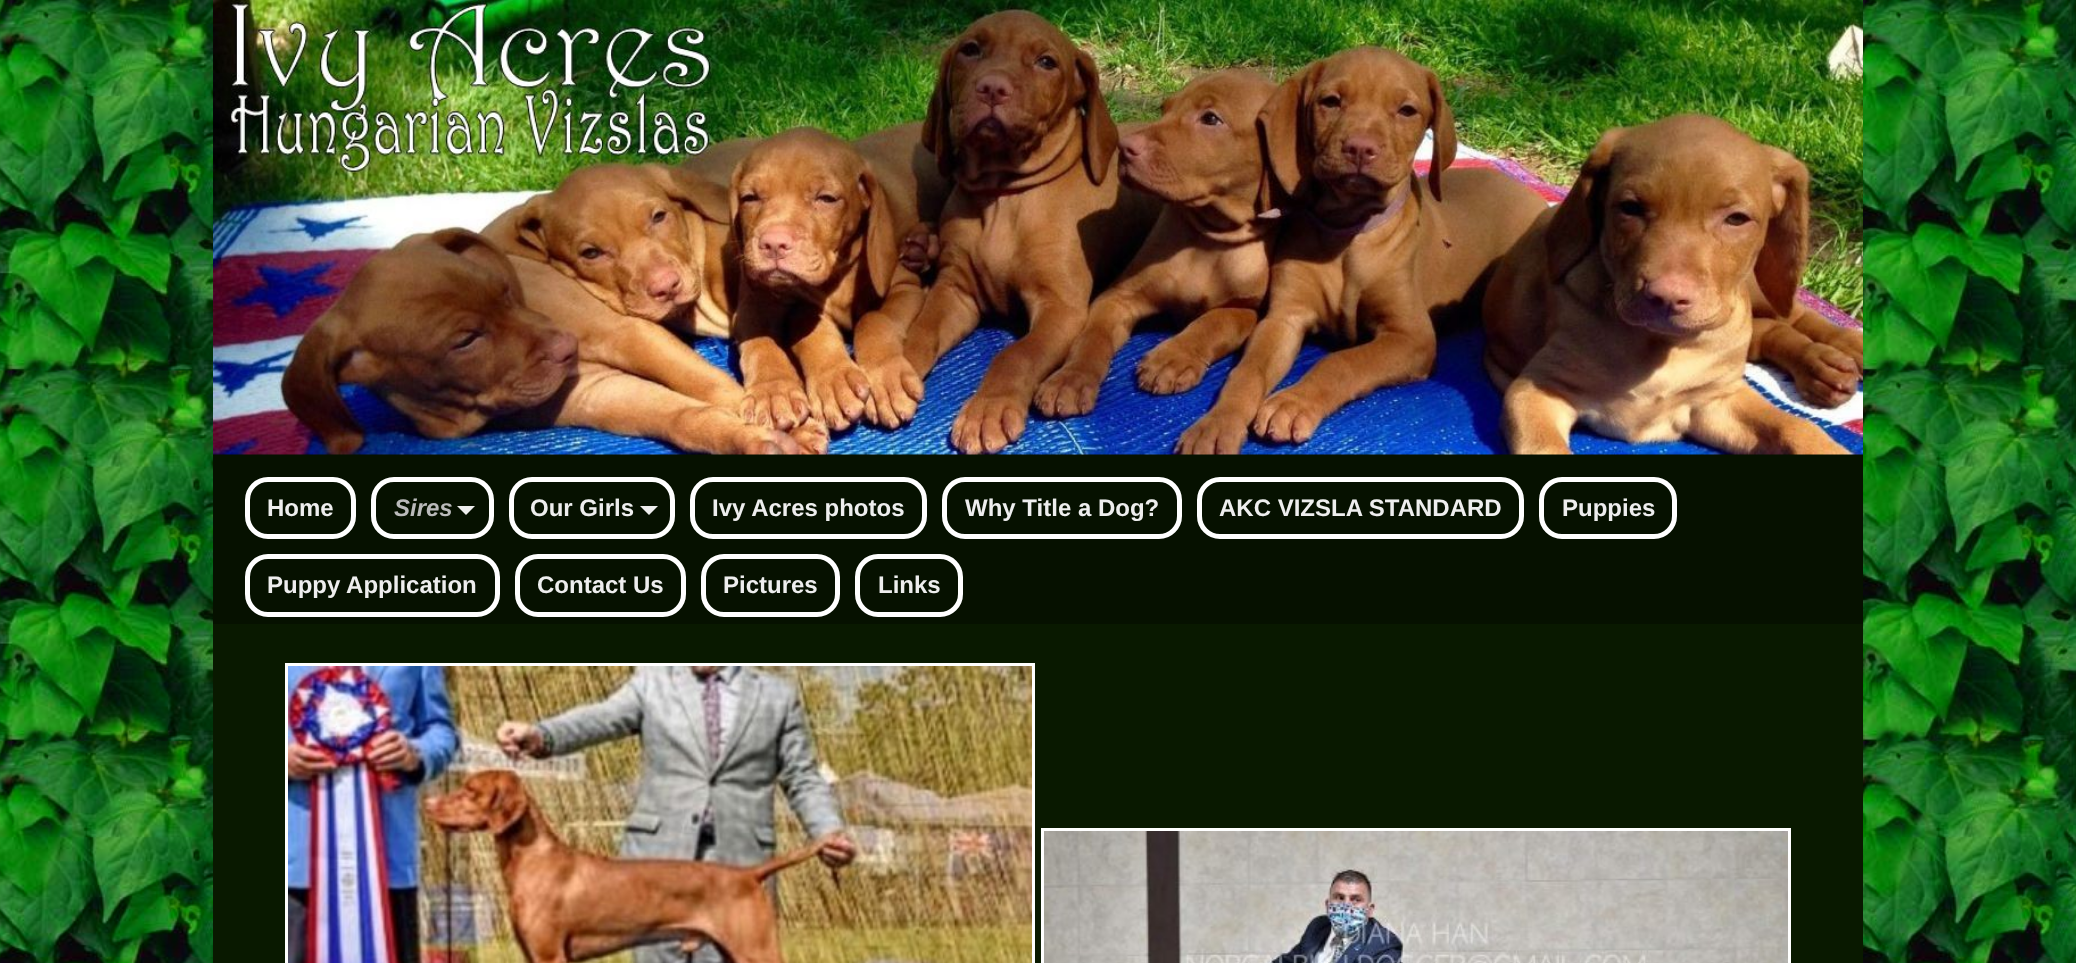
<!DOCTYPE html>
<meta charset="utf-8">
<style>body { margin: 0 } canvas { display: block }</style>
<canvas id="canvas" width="2076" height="963"></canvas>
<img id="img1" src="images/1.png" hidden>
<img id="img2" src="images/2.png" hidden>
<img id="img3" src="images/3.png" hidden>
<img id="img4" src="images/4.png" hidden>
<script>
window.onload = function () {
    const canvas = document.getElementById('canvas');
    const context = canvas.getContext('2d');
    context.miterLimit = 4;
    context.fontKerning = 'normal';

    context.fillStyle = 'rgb(255, 255, 255)';
    context.fillRect(0, 0, 2076, 963);
    context.drawImage(document.getElementById('img1'), 0, 0, 2076, 963);
    context.fillStyle = 'rgb(9, 25, 0)';
    context.fillRect(213, 624, 1650, 339);
    context.fillStyle = 'rgb(6, 17, 0)';
    context.fillRect(213, 454, 1650, 170);
    context.drawImage(document.getElementById('img2'), 213, 0, 1650, 455);
    context.beginPath();
    context.roundRect(247.5, 479.5, 106, 57, 20.5);
    context.strokeStyle = 'rgb(255, 255, 255)';
    context.lineWidth = 5;
    context.stroke();
    context.beginPath();
    context.roundRect(373.5, 479.5, 118, 57, 20.5);
    context.stroke();
    context.fillStyle = 'rgb(238, 238, 238)';
    context.beginPath();
    context.moveTo(457, 506);
    context.lineTo(475, 506);
    context.lineTo(466, 515);
    context.closePath();
    context.fill();
    context.beginPath();
    context.roundRect(511.5, 479.5, 161, 57, 20.5);
    context.stroke();
    context.beginPath();
    context.moveTo(640, 506);
    context.lineTo(658, 506);
    context.lineTo(649, 515);
    context.closePath();
    context.fill();
    context.beginPath();
    context.roundRect(692.5, 479.5, 232, 57, 20.5);
    context.stroke();
    context.beginPath();
    context.roundRect(944.5, 479.5, 235, 57, 20.5);
    context.stroke();
    context.beginPath();
    context.roundRect(1199.5, 479.5, 322, 57, 20.5);
    context.stroke();
    context.beginPath();
    context.roundRect(1541.5, 479.5, 133, 57, 20.5);
    context.stroke();
    context.beginPath();
    context.roundRect(247.5, 556.5, 250, 58, 20.5);
    context.stroke();
    context.beginPath();
    context.roundRect(517.5, 556.5, 166, 58, 20.5);
    context.stroke();
    context.beginPath();
    context.roundRect(703.5, 556.5, 134, 58, 20.5);
    context.stroke();
    context.beginPath();
    context.roundRect(857.5, 556.5, 103, 58, 20.5);
    context.stroke();
    context.fillStyle = 'rgb(255, 255, 255)';
    context.fillRect(285, 663, 750, 300);
    context.drawImage(document.getElementById('img3'), 288, 666, 744, 297);
    context.fillRect(1041, 828, 750, 135);
    context.drawImage(document.getElementById('img4'), 1044, 831, 744, 132);
    context.font = 'bold 24px Liberation Sans';
    context.fillStyle = 'rgb(238, 238, 238)';
    context.fillText('Home', 267, 516);
    context.font = 'italic bold 24px Liberation Sans';
    context.fillStyle = 'rgb(186, 186, 186)';
    context.fillText('Sires', 394, 516);
    context.font = 'bold 24px Liberation Sans';
    context.fillStyle = 'rgb(238, 238, 238)';
    context.fillText('Our Girls', 530, 516);
    context.fillText('Ivy Acres photos', 712, 516);
    context.fillText('Why Title a Dog?', 965, 516);
    context.fillText('AKC VIZSLA STANDARD', 1219, 516);
    context.fillText('Puppies', 1562, 516);
    context.fillText('Puppy Application', 267, 593);
    context.fillText('Contact Us', 537, 593);
    context.fillText('Pictures', 723, 593);
    context.fillText('Links', 878, 593);
};
</script>
